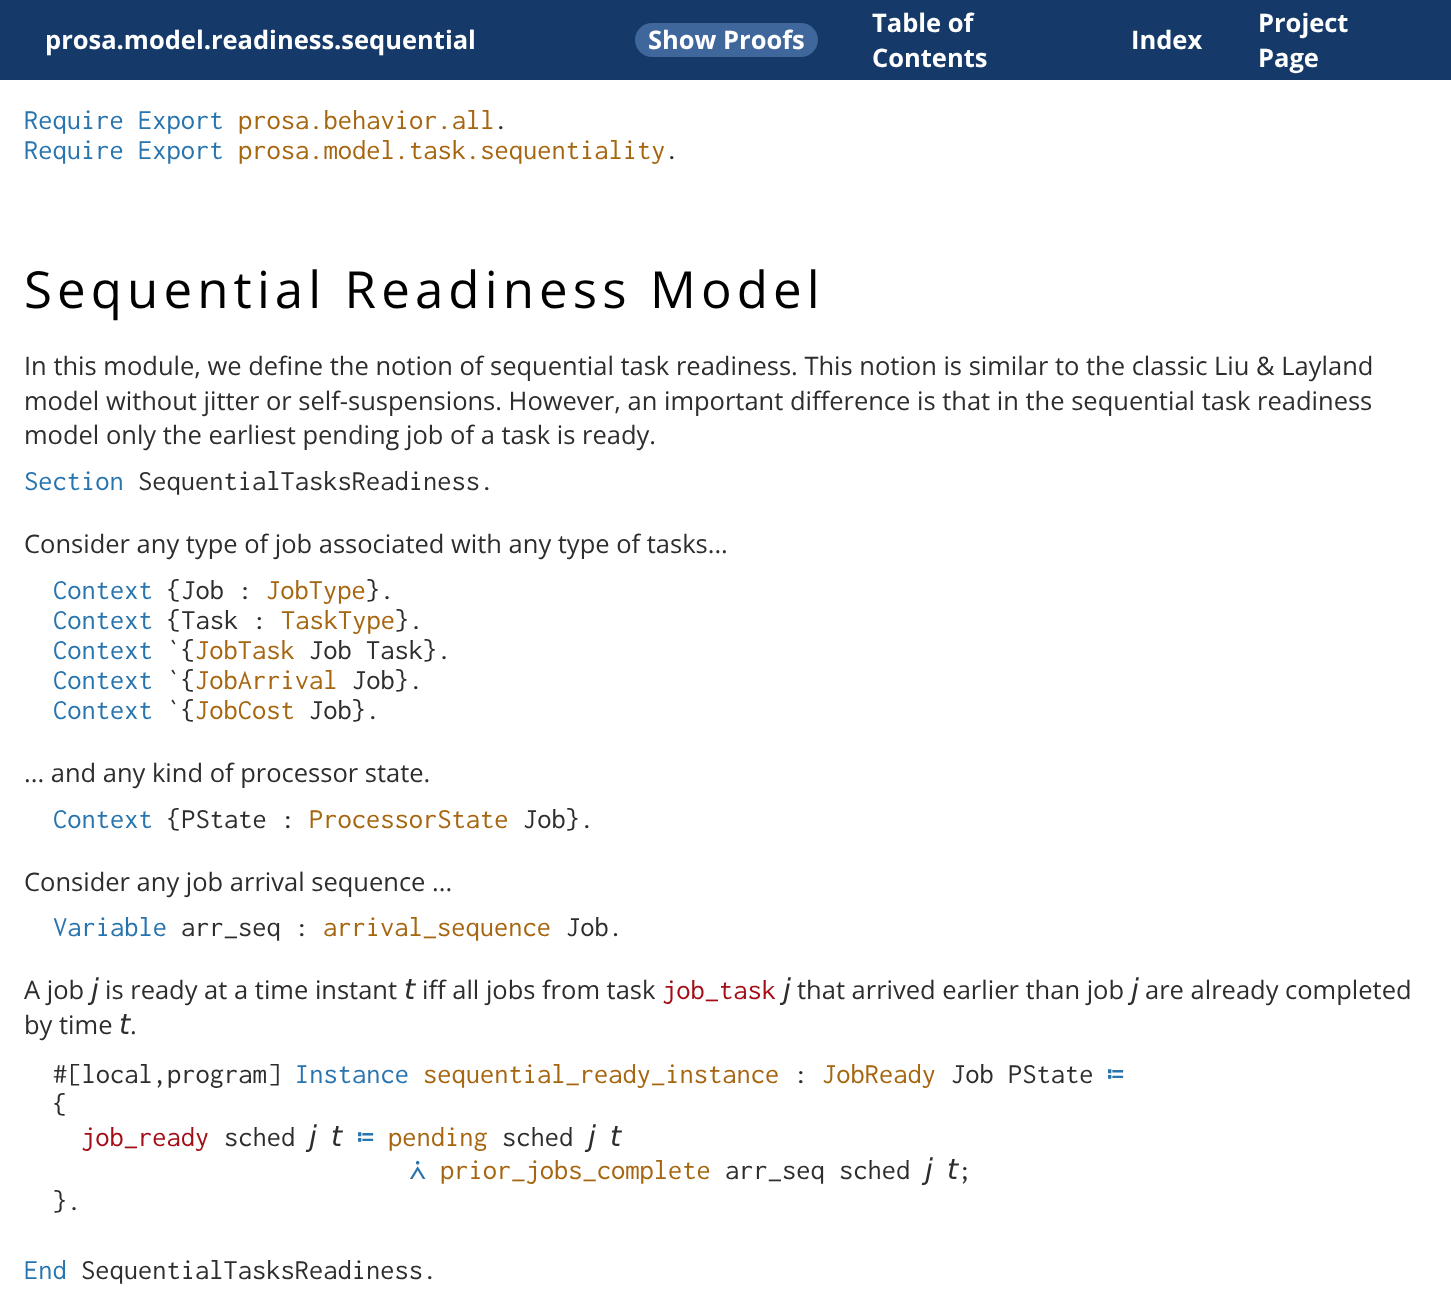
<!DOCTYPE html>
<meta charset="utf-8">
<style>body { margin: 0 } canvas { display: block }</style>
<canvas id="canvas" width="1451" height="1311"></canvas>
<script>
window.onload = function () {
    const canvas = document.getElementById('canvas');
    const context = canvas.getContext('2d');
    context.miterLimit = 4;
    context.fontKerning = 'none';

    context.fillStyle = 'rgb(255, 255, 255)';
    context.fillRect(0, 0, 1451, 1311);
    context.fillStyle = 'rgb(21, 57, 105)';
    context.fillRect(0, 0, 1451, 80);
    context.fillStyle = 'rgb(63, 103, 156)';
    context.beginPath();
    context.roundRect(635, 23, 183, 34, 17);
    context.fill();
    context.font = 'bold 25.5px Open Sans';
    context.fillStyle = 'rgb(255, 255, 255)';
    context.fillText('prosa.model.readiness.sequential', 45, 49);
    context.fillText('Show Proofs', 648, 49);
    context.fillText('Table of', 872, 32);
    context.fillText('Contents', 872, 67);
    context.fillText('Index', 1131, 49);
    context.fillText('Project', 1258, 32);
    context.fillText('Page', 1258, 67);
    context.font = '28.5px Inconsolata';
    context.fillStyle = 'rgb(40, 116, 174)';
    context.fillText('Require Export', 24, 129);
    context.fillStyle = 'rgb(166, 101, 15)';
    context.fillText('prosa.behavior.all', 238, 129);
    context.fillStyle = 'rgb(45, 45, 45)';
    context.fillText('.', 494, 129);
    context.fillStyle = 'rgb(40, 116, 174)';
    context.fillText('Require Export', 24, 159);
    context.fillStyle = 'rgb(166, 101, 15)';
    context.fillText('prosa.model.task.sequentiality', 238, 159);
    context.fillStyle = 'rgb(45, 45, 45)';
    context.fillText('.', 665, 159);
    context.letterSpacing = '5.1px';
    context.font = '51px Open Sans';
    context.fillStyle = 'rgb(0, 0, 0)';
    context.fillText('Sequential Readiness Model', 24, 308);
    context.letterSpacing = '0px';
    context.font = '25.5px Open Sans';
    context.fillStyle = 'rgb(45, 45, 45)';
    context.fillText('In this module, we define the notion of sequential task readiness. This notion is similar to the classic Liu & Layland', 24, 375);
    context.fillText('model without jitter or self-suspensions. However, an important difference is that in the sequential task readiness', 24, 410);
    context.fillText('model only the earliest pending job of a task is ready.', 24, 444);
    context.font = '28.5px Inconsolata';
    context.fillStyle = 'rgb(40, 116, 174)';
    context.fillText('Section', 24, 490);
    context.fillStyle = 'rgb(45, 45, 45)';
    context.fillText('SequentialTasksReadiness.', 138, 490);
    context.font = '25.5px Open Sans';
    context.fillText('Consider any type of job associated with any type of tasks...', 24, 553);
    context.font = '28.5px Inconsolata';
    context.fillStyle = 'rgb(40, 116, 174)';
    context.fillText('Context', 53, 599);
    context.fillStyle = 'rgb(45, 45, 45)';
    context.fillText('{Job :', 167, 599);
    context.fillStyle = 'rgb(166, 101, 15)';
    context.fillText('JobType', 266, 599);
    context.fillStyle = 'rgb(45, 45, 45)';
    context.fillText('}.', 366, 599);
    context.fillStyle = 'rgb(40, 116, 174)';
    context.fillText('Context', 53, 629);
    context.fillStyle = 'rgb(45, 45, 45)';
    context.fillText('{Task :', 167, 629);
    context.fillStyle = 'rgb(166, 101, 15)';
    context.fillText('TaskType', 281, 629);
    context.fillStyle = 'rgb(45, 45, 45)';
    context.fillText('}.', 395, 629);
    context.fillStyle = 'rgb(40, 116, 174)';
    context.fillText('Context', 53, 659);
    context.fillStyle = 'rgb(45, 45, 45)';
    context.fillText('`{', 167, 659);
    context.fillStyle = 'rgb(166, 101, 15)';
    context.fillText('JobTask', 195, 659);
    context.fillStyle = 'rgb(45, 45, 45)';
    context.fillText('Job Task}.', 309, 659);
    context.fillStyle = 'rgb(40, 116, 174)';
    context.fillText('Context', 53, 689);
    context.fillStyle = 'rgb(45, 45, 45)';
    context.fillText('`{', 167, 689);
    context.fillStyle = 'rgb(166, 101, 15)';
    context.fillText('JobArrival', 195, 689);
    context.fillStyle = 'rgb(45, 45, 45)';
    context.fillText('Job}.', 352, 689);
    context.fillStyle = 'rgb(40, 116, 174)';
    context.fillText('Context', 53, 719);
    context.fillStyle = 'rgb(45, 45, 45)';
    context.fillText('`{', 167, 719);
    context.fillStyle = 'rgb(166, 101, 15)';
    context.fillText('JobCost', 195, 719);
    context.fillStyle = 'rgb(45, 45, 45)';
    context.fillText('Job}.', 309, 719);
    context.font = '25.5px Open Sans';
    context.fillText('... and any kind of processor state.', 24, 782);
    context.font = '28.5px Inconsolata';
    context.fillStyle = 'rgb(40, 116, 174)';
    context.fillText('Context', 53, 828);
    context.fillStyle = 'rgb(45, 45, 45)';
    context.fillText('{PState :', 167, 828);
    context.fillStyle = 'rgb(166, 101, 15)';
    context.fillText('ProcessorState', 309, 828);
    context.fillStyle = 'rgb(45, 45, 45)';
    context.fillText('Job}.', 523, 828);
    context.font = '25.5px Open Sans';
    context.fillText('Consider any job arrival sequence ...', 24, 891);
    context.font = '28.5px Inconsolata';
    context.fillStyle = 'rgb(40, 116, 174)';
    context.fillText('Variable', 53, 936);
    context.fillStyle = 'rgb(45, 45, 45)';
    context.fillText('arr_seq :', 181, 936);
    context.fillStyle = 'rgb(166, 101, 15)';
    context.fillText('arrival_sequence', 323, 936);
    context.fillStyle = 'rgb(45, 45, 45)';
    context.fillText('Job.', 566, 936);
    context.font = '25.5px Open Sans';
    context.fillText('A job', 24, 999);
    context.font = 'italic 28.5px DejaVu Sans';
    context.fillText('𝘫', 91, 999);
    context.font = '25.5px Open Sans';
    context.fillText('is ready at a time instant', 105, 999);
    context.font = 'italic 28.5px DejaVu Sans';
    context.fillText('𝘵', 404, 999);
    context.font = '25.5px Open Sans';
    context.fillText('iff all jobs from task', 422, 999);
    context.font = '28.5px Inconsolata';
    context.fillStyle = 'rgb(163, 14, 22)';
    context.fillText('job_task', 662, 999);
    context.font = 'italic 28.5px DejaVu Sans';
    context.fillStyle = 'rgb(45, 45, 45)';
    context.fillText('𝘫', 783, 999);
    context.font = '25.5px Open Sans';
    context.fillText('that arrived earlier than job', 797, 999);
    context.font = 'italic 28.5px DejaVu Sans';
    context.fillText('𝘫', 1131, 999);
    context.font = '25.5px Open Sans';
    context.fillText('are already completed', 1145, 999);
    context.fillText('by time', 24, 1034);
    context.font = 'italic 28.5px DejaVu Sans';
    context.fillText('𝘵', 119, 1034);
    context.font = '25.5px Open Sans';
    context.fillText('.', 130, 1034);
    context.font = '28.5px Inconsolata';
    context.fillText('#[local,program]', 53, 1083);
    context.fillStyle = 'rgb(40, 116, 174)';
    context.fillText('Instance', 295, 1083);
    context.fillStyle = 'rgb(166, 101, 15)';
    context.fillText('sequential_ready_instance', 423, 1083);
    context.fillStyle = 'rgb(45, 45, 45)';
    context.fillText(':', 794, 1083);
    context.fillStyle = 'rgb(166, 101, 15)';
    context.fillText('JobReady', 822, 1083);
    context.fillStyle = 'rgb(45, 45, 45)';
    context.fillText('Job PState', 951, 1083);
    context.font = '28.5px DejaVu Sans Mono';
    context.fillStyle = 'rgb(40, 116, 174)';
    context.fillText('≔', 1107, 1083);
    context.font = '28.5px Inconsolata';
    context.fillStyle = 'rgb(45, 45, 45)';
    context.fillText('{', 53, 1113);
    context.fillStyle = 'rgb(163, 14, 22)';
    context.fillText('job_ready', 81, 1146);
    context.fillStyle = 'rgb(45, 45, 45)';
    context.fillText('sched', 224, 1146);
    context.font = 'italic 28.5px DejaVu Sans';
    context.fillText('𝘫', 309, 1146);
    context.fillText('𝘵', 331, 1146);
    context.font = '28.5px DejaVu Sans Mono';
    context.fillStyle = 'rgb(40, 116, 174)';
    context.fillText('≔', 357, 1146);
    context.font = '28.5px Inconsolata';
    context.fillStyle = 'rgb(166, 101, 15)';
    context.fillText('pending', 388, 1146);
    context.fillStyle = 'rgb(45, 45, 45)';
    context.fillText('sched', 502, 1146);
    context.font = 'italic 28.5px DejaVu Sans';
    context.fillText('𝘫', 588, 1146);
    context.fillText('𝘵', 610, 1146);
    context.font = '28.5px FreeSans';
    context.fillStyle = 'rgb(40, 116, 174)';
    context.fillText('⩑', 409, 1179);
    context.font = '28.5px Inconsolata';
    context.fillStyle = 'rgb(166, 101, 15)';
    context.fillText('prior_jobs_complete', 440, 1179);
    context.fillStyle = 'rgb(45, 45, 45)';
    context.fillText('arr_seq sched', 725, 1179);
    context.font = 'italic 28.5px DejaVu Sans';
    context.fillText('𝘫', 925, 1179);
    context.fillText('𝘵', 947, 1179);
    context.font = '28.5px Inconsolata';
    context.fillText(';', 958, 1179);
    context.fillText('}.', 53, 1210);
    context.fillStyle = 'rgb(40, 116, 174)';
    context.fillText('End', 24, 1279);
    context.fillStyle = 'rgb(45, 45, 45)';
    context.fillText('SequentialTasksReadiness.', 81, 1279);
};
</script>
